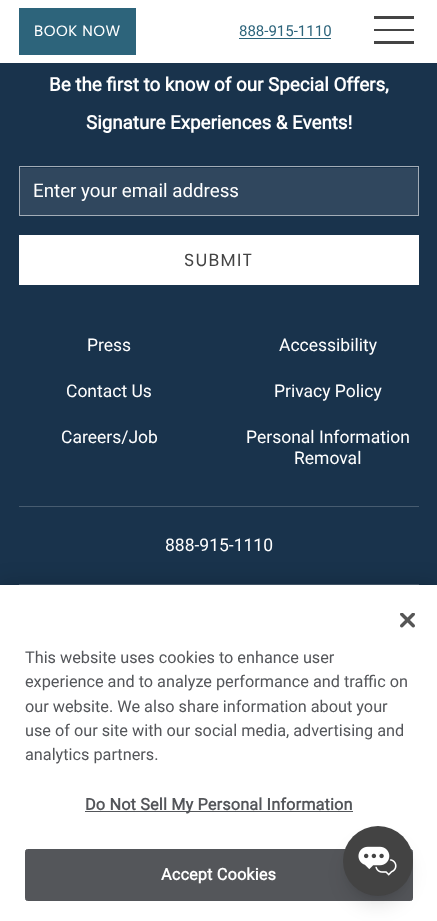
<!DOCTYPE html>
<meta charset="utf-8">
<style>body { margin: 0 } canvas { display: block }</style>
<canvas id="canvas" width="437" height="921"></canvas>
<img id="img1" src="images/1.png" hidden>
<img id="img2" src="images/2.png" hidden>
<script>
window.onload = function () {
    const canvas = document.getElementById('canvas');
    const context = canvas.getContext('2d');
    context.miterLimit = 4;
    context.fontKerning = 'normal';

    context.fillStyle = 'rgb(25, 51, 76)';
    context.fillRect(0, 0, 437, 921);
    context.fillStyle = 'rgb(255, 255, 255)';
    context.fillRect(0, 0, 437, 63);
    context.fillStyle = 'rgb(45, 100, 123)';
    context.fillRect(19, 8, 117, 47);
    context.fillRect(239, 38, 92, 1);
    context.fillStyle = 'rgb(68, 68, 68)';
    context.fillRect(374, 16, 40, 3);
    context.fillRect(374, 29, 40, 2);
    context.fillRect(374, 41, 40, 3);
    context.fillStyle = 'rgb(48, 71, 94)';
    context.fillRect(20, 168, 398, 47);
    context.strokeStyle = 'rgb(163, 173, 183)';
    context.strokeRect(19.5, 166.5, 399, 49);
    context.fillStyle = 'rgb(255, 255, 255)';
    context.fillRect(19, 235, 400, 50);
    context.fillStyle = 'rgb(71, 92, 112)';
    context.fillRect(19, 506, 400, 1);
    context.fillRect(19, 584, 400, 1);
    context.fillStyle = 'rgba(0, 0, 0, 0.2)';
    context.filter = 'blur(11px)';
    context.beginPath();
    context.rect(0, 585, 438, 336);
    context.fill();
    context.filter = 'none';
    context.fillStyle = 'rgb(255, 255, 255)';
    context.fillRect(0, 585, 437, 336);
    context.drawImage(document.getElementById('img1'), 400, 613, 15, 15);
    context.fillStyle = 'rgb(84, 86, 90)';
    context.fillRect(85, 811, 268, 1);
    context.beginPath();
    context.roundRect(25.5, 849.5, 387, 51, 2);
    context.fill();
    context.strokeStyle = 'rgb(84, 86, 90)';
    context.stroke();
    context.fillStyle = 'rgba(0, 0, 0, 0.1)';
    context.filter = 'blur(4px)';
    context.beginPath();
    context.roundRect(348, 836, 60, 60, 30);
    context.fill();
    context.filter = 'none';
    context.filter = 'blur(9.5px)';
    context.beginPath();
    context.roundRect(346, 843, 63, 62, 31);
    context.fill();
    context.filter = 'none';
    context.fillStyle = 'rgb(67, 67, 67)';
    context.beginPath();
    context.arc(378, 861, 35, 0, 2 * Math.PI);
    context.fill();
    context.drawImage(document.getElementById('img2'), 358, 846, 39, 30);
    context.letterSpacing = '0.5px';
    context.font = '15px Poppins';
    context.fillStyle = 'rgb(255, 255, 255)';
    context.fillText('BOOK NOW', 34, 36);
    context.letterSpacing = '0px';
    context.font = '15px Roboto';
    context.fillStyle = 'rgb(45, 100, 123)';
    context.fillText('888-915-1110', 239, 36);
    context.font = 'bold 18.75px Roboto';
    context.fillStyle = 'rgb(255, 255, 255)';
    context.fillText('Be the first to know of our Special Offers,', 49, 91);
    context.fillText('Signature Experiences & Events!', 86, 129);
    context.font = '18.75px Roboto';
    context.fillText('Enter your email address', 33, 197);
    context.letterSpacing = '1.25px';
    context.font = '17.5px Poppins';
    context.fillStyle = 'rgb(68, 68, 68)';
    context.fillText('SUBMIT', 184, 266);
    context.letterSpacing = '0px';
    context.font = '17.5px Roboto';
    context.fillStyle = 'rgb(255, 255, 255)';
    context.fillText('Press', 87, 351);
    context.fillText('Accessibility', 279, 351);
    context.fillText('Contact Us', 66, 397);
    context.fillText('Privacy Policy', 274, 397);
    context.fillText('Careers/Job', 61, 443);
    context.fillText('Personal Information', 246, 443);
    context.fillText('Removal', 294, 464);
    context.fillText('888-915-1110', 165, 551);
    context.font = '16.25px Roboto';
    context.fillStyle = 'rgb(84, 86, 90)';
    context.fillText('This website uses cookies to enhance user', 25, 663);
    context.fillText('experience and to analyze performance and traffic on', 25, 687);
    context.fillText('our website. We also share information about your', 25, 712);
    context.fillText('use of our site with our social media, advertising and', 25, 736);
    context.fillText('analytics partners.', 25, 760);
    context.letterSpacing = '0.15px';
    context.font = 'bold 16.25px Roboto';
    context.fillText('Do Not Sell My Personal Information', 85, 810);
    context.fillStyle = 'rgb(255, 255, 255)';
    context.fillText('Accept Cookies', 161, 880);
};
</script>
